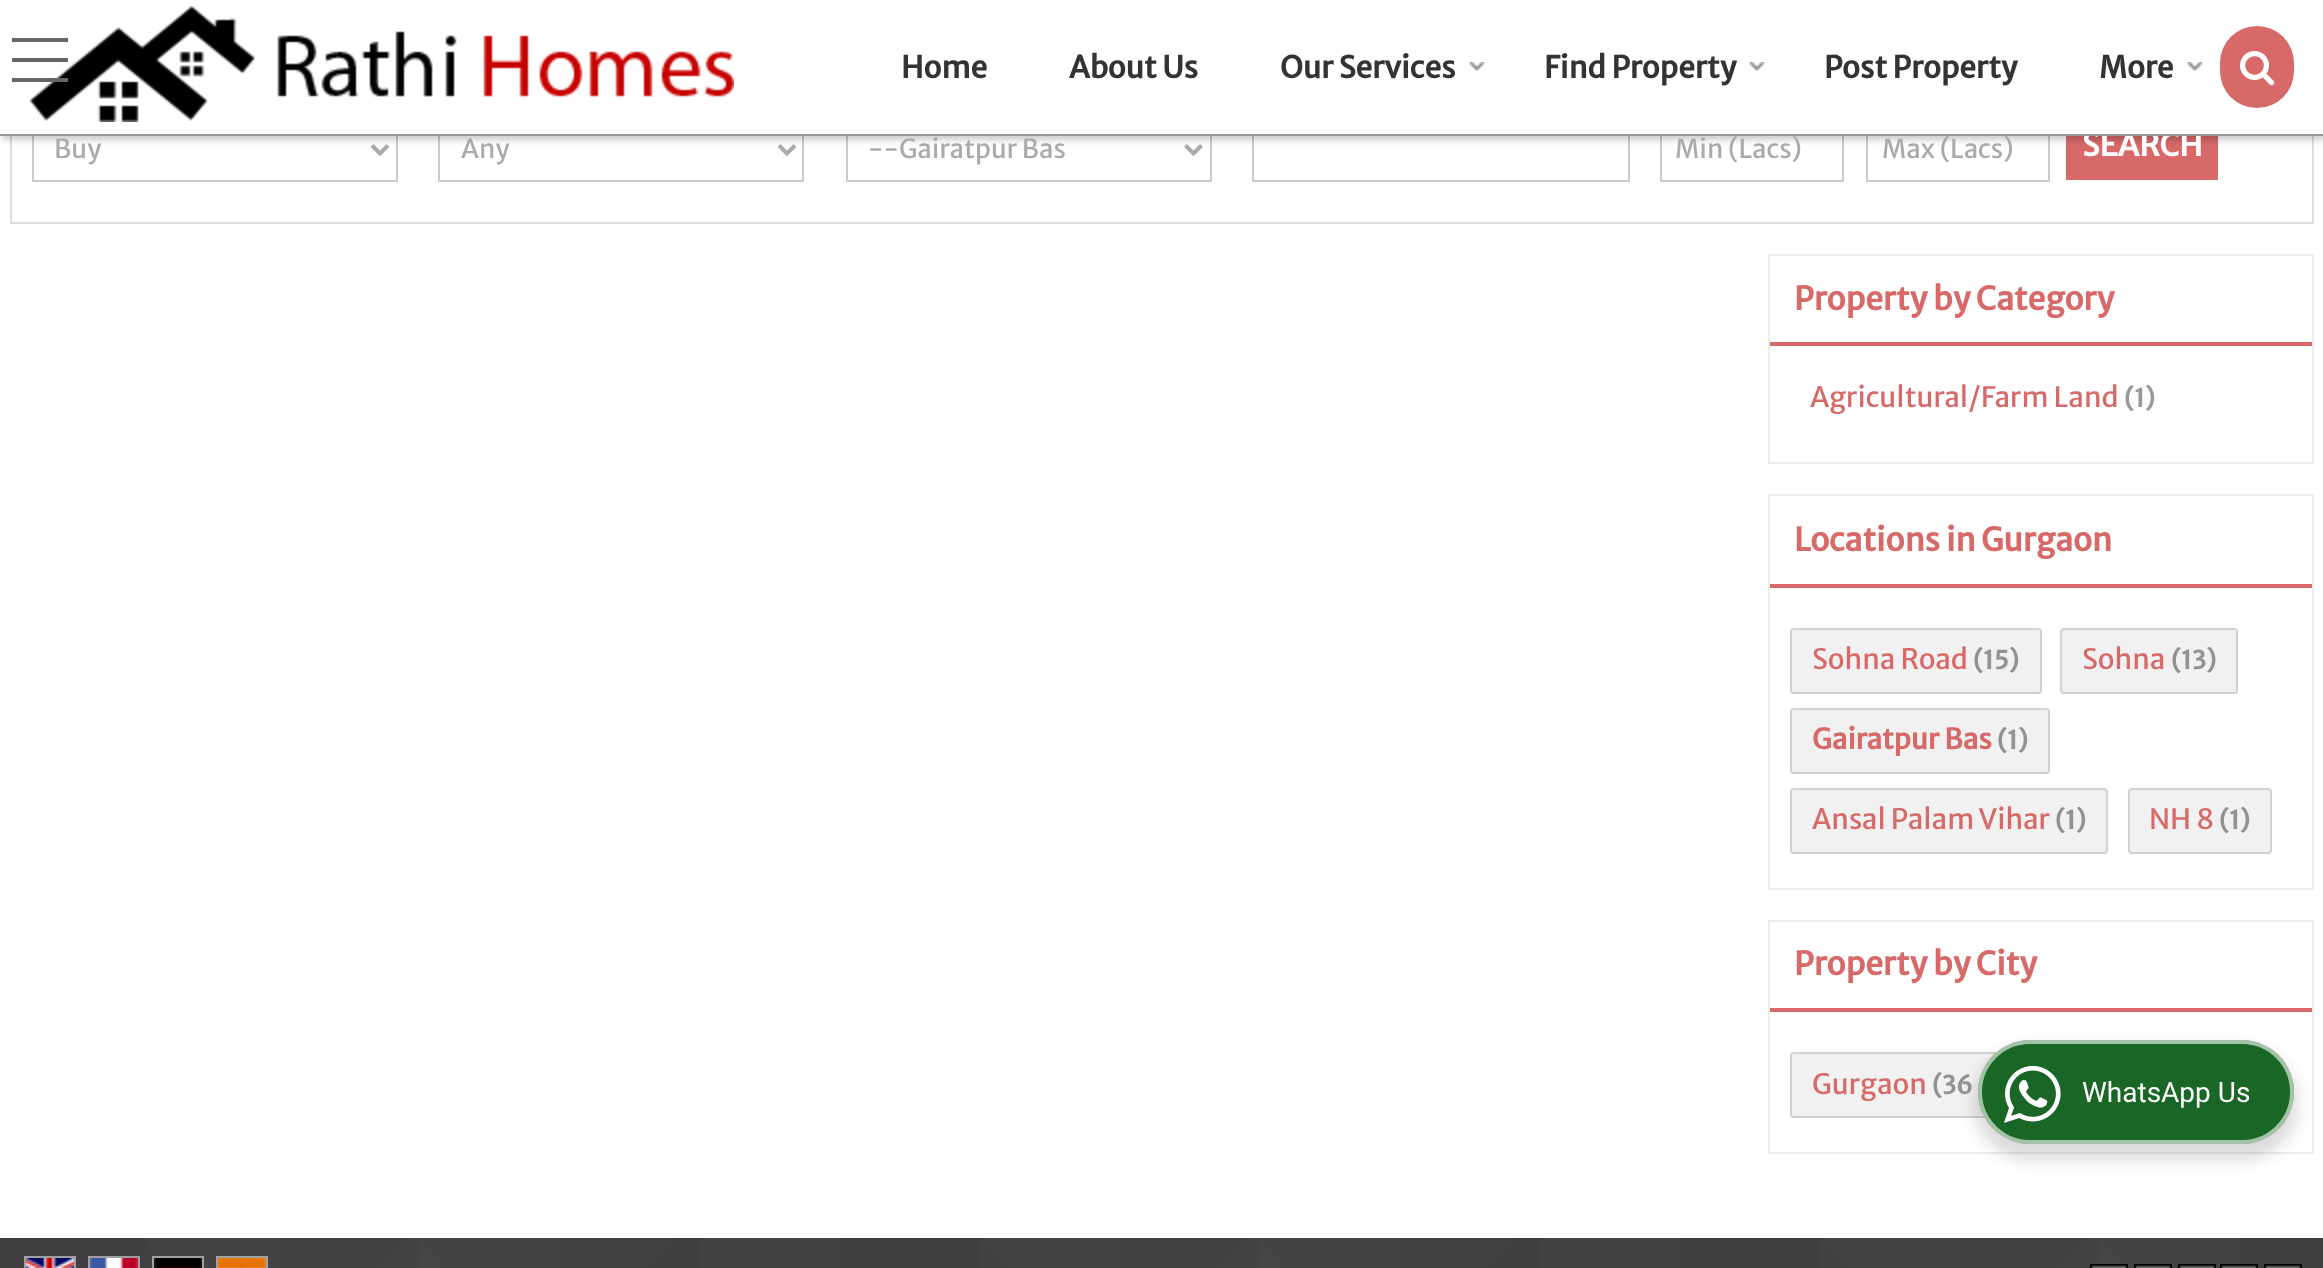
<!DOCTYPE html>
<meta charset="utf-8">
<style>body { margin: 0 } canvas { display: block }</style>
<canvas id="canvas" width="2323" height="1268"></canvas>
<img id="img1" src="images/1.png" hidden>
<img id="img2" src="images/2.png" hidden>
<img id="img3" src="images/3.png" hidden>
<img id="img4" src="images/4.png" hidden>
<img id="img5" src="images/5.png" hidden>
<img id="img6" src="images/6.png" hidden>
<img id="img7" src="images/7.png" hidden>
<img id="img8" src="images/8.png" hidden>
<img id="img9" src="images/9.png" hidden>
<img id="img10" src="images/10.png" hidden>
<script>
window.onload = function () {
    const canvas = document.getElementById('canvas');
    const context = canvas.getContext('2d');
    context.miterLimit = 4;
    context.fontKerning = 'normal';

    context.fillStyle = 'rgb(255, 255, 255)';
    context.fillRect(0, 0, 2323, 1268);
    context.strokeStyle = 'rgb(222, 222, 222)';
    context.lineWidth = 2;
    context.strokeRect(11, 49, 2302, 174);
    context.strokeStyle = 'rgb(204, 204, 204)';
    context.strokeRect(33, 117, 364, 64);
    context.beginPath();
    context.moveTo(372, 145.5);
    context.lineTo(380, 153.5);
    context.lineTo(388, 145.5);
    context.strokeStyle = 'rgb(170, 170, 170)';
    context.lineWidth = 4;
    context.stroke();
    context.strokeStyle = 'rgb(204, 204, 204)';
    context.lineWidth = 2;
    context.strokeRect(439, 117, 364, 64);
    context.beginPath();
    context.moveTo(779, 145.5);
    context.lineTo(787, 153.5);
    context.lineTo(795, 145.5);
    context.strokeStyle = 'rgb(170, 170, 170)';
    context.lineWidth = 4;
    context.stroke();
    context.strokeStyle = 'rgb(204, 204, 204)';
    context.lineWidth = 2;
    context.strokeRect(847, 117, 364, 64);
    context.beginPath();
    context.moveTo(1185.5, 145.5);
    context.lineTo(1193.5, 153.5);
    context.lineTo(1201.5, 145.5);
    context.strokeStyle = 'rgb(170, 170, 170)';
    context.lineWidth = 4;
    context.stroke();
    context.strokeStyle = 'rgb(204, 204, 204)';
    context.lineWidth = 2;
    context.strokeRect(1253, 117, 376, 64);
    context.strokeRect(1661, 117, 182, 64);
    context.strokeRect(1867, 117, 182, 64);
    context.fillStyle = 'rgb(216, 105, 105)';
    context.fillRect(2066, 136, 152, 44);
    context.fillStyle = 'rgba(0, 0, 0, 0.2)';
    context.filter = 'blur(3px)';
    context.beginPath();
    context.rect(2, 4, 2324, 136);
    context.fill();
    context.filter = 'none';
    context.fillStyle = 'rgb(255, 255, 255)';
    context.fillRect(0, 0, 2323, 134);
    context.drawImage(document.getElementById('img1'), 30, 6, 704, 116);
    context.fillStyle = 'rgb(102, 102, 102)';
    context.fillRect(12, 58, 56, 4);
    context.fillRect(12, 38, 56, 4);
    context.fillRect(12, 78, 56, 4);
    context.drawImage(document.getElementById('img2'), 1469, 62, 16, 10);
    context.drawImage(document.getElementById('img2'), 1749, 62, 16, 10);
    context.drawImage(document.getElementById('img2'), 2187, 62, 16, 10);
    context.fillStyle = 'rgb(216, 105, 105)';
    context.beginPath();
    context.roundRect(2220, 26, 74, 82, 37);
    context.fill();
    context.drawImage(document.getElementById('img3'), 2240, 51, 35, 35);
    context.strokeStyle = 'rgb(237, 237, 237)';
    context.strokeRect(1769, 255, 544, 208);
    context.fillRect(1770, 342, 542, 4);
    context.strokeRect(1769, 495, 544, 394);
    context.fillRect(1770, 584, 542, 4);
    context.fillStyle = 'rgb(241, 241, 241)';
    context.beginPath();
    context.roundRect(1790, 628, 252, 66, 4);
    context.fill();
    context.beginPath();
    context.roundRect(1791, 629, 250, 64, 3);
    context.strokeStyle = 'rgba(0, 0, 0, 0.13)';
    context.stroke();
    context.beginPath();
    context.roundRect(2060, 628, 178, 66, 4);
    context.fill();
    context.beginPath();
    context.roundRect(2061, 629, 176, 64, 3);
    context.stroke();
    context.beginPath();
    context.roundRect(1790, 708, 260, 66, 4);
    context.fill();
    context.beginPath();
    context.roundRect(1791, 709, 258, 64, 3);
    context.stroke();
    context.beginPath();
    context.roundRect(1790, 788, 318, 66, 4);
    context.fill();
    context.beginPath();
    context.roundRect(1791, 789, 316, 64, 3);
    context.stroke();
    context.beginPath();
    context.roundRect(2128, 788, 144, 66, 4);
    context.fill();
    context.beginPath();
    context.roundRect(2129, 789, 142, 64, 3);
    context.stroke();
    context.strokeStyle = 'rgb(237, 237, 237)';
    context.strokeRect(1769, 921, 544, 232);
    context.fillStyle = 'rgb(216, 105, 105)';
    context.fillRect(1770, 1008, 542, 4);
    context.fillStyle = 'rgb(241, 241, 241)';
    context.beginPath();
    context.roundRect(1790, 1052, 216, 66, 4);
    context.fill();
    context.beginPath();
    context.roundRect(1791, 1053, 214, 64, 3);
    context.strokeStyle = 'rgba(0, 0, 0, 0.13)';
    context.stroke();
    context.fillStyle = 'rgb(65, 63, 66)';
    context.fillRect(0, 1238, 2323, 30);
    context.drawImage(document.getElementById('img4'), 146, 1238, 2093, 30);
    context.strokeStyle = 'rgb(160, 159, 161)';
    context.strokeRect(25, 1257, 50, 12);
    context.strokeRect(89, 1257, 50, 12);
    context.strokeStyle = 'rgb(162, 161, 162)';
    context.strokeRect(153, 1257, 50, 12);
    context.strokeStyle = 'rgb(162, 161, 163)';
    context.strokeRect(217, 1257, 50, 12);
    context.drawImage(document.getElementById('img5'), 26, 1258, 48, 10);
    context.drawImage(document.getElementById('img6'), 90, 1258, 48, 10);
    context.drawImage(document.getElementById('img7'), 154, 1258, 48, 10);
    context.drawImage(document.getElementById('img8'), 218, 1258, 48, 10);
    context.drawImage(document.getElementById('img9'), 2090, 1264, 38, 4);
    context.drawImage(document.getElementById('img9'), 2134, 1264, 38, 4);
    context.drawImage(document.getElementById('img9'), 2178, 1264, 38, 4);
    context.drawImage(document.getElementById('img9'), 2220, 1264, 38, 4);
    context.drawImage(document.getElementById('img9'), 2264, 1264, 38, 4);
    context.fillStyle = 'rgba(0, 0, 0, 0.14)';
    context.filter = 'blur(8px)';
    context.beginPath();
    context.roundRect(1974, 1048, 324, 112, 56);
    context.fill();
    context.filter = 'none';
    context.fillStyle = 'rgb(25, 102, 38)';
    context.beginPath();
    context.roundRect(1978, 1040, 316, 104, 52);
    context.fill();
    context.beginPath();
    context.roundRect(1980, 1042, 312, 100, 50);
    context.strokeStyle = 'rgba(255, 255, 255, 0.6)';
    context.lineWidth = 4;
    context.stroke();
    context.drawImage(document.getElementById('img10'), 2004, 1065, 57, 58);
    context.font = 'bold 30px Merriweather Sans';
    context.fillStyle = 'rgb(51, 51, 51)';
    context.fillText('Home', 901, 78);
    context.fillText('About Us', 1069, 78);
    context.fillText('Our Services', 1280, 78);
    context.fillText('Find Property', 1544, 78);
    context.fillText('Post Property', 1824, 78);
    context.fillText('More', 2099, 78);
    context.font = '26px Merriweather Sans';
    context.fillStyle = 'rgb(170, 170, 170)';
    context.fillText('Buy', 54, 158);
    context.fillText('Any', 461, 158);
    context.fillText('--Gairatpur Bas', 868, 158);
    context.fillText('Min (Lacs)', 1675, 158);
    context.fillText('Max (Lacs)', 1882, 158);
    context.font = 'bold 31px Merriweather Sans';
    context.fillStyle = 'rgb(255, 255, 255)';
    context.fillText('SEARCH', 2082, 156);
    context.fillStyle = 'rgb(153, 153, 153)';
    context.fillRect(0, 134, 2323, 2);
    context.font = 'bold 32px Merriweather Sans';
    context.fillStyle = 'rgb(216, 105, 105)';
    context.fillText('Property by Category', 1794, 310);
    context.font = '28px Merriweather Sans';
    context.fillText('Agricultural/Farm Land', 1810, 407);
    context.font = 'bold 25px Merriweather Sans';
    context.fillStyle = 'rgb(153, 153, 153)';
    context.fillText('(1)', 2124, 407);
    context.font = 'bold 32px Merriweather Sans';
    context.fillStyle = 'rgb(216, 105, 105)';
    context.fillText('Locations in Gurgaon', 1794, 551);
    context.font = '28px Merriweather Sans';
    context.fillText('Sohna Road', 1812, 669);
    context.font = 'bold 25px Merriweather Sans';
    context.fillStyle = 'rgb(146, 146, 146)';
    context.fillText('(15)', 1973, 669);
    context.font = '28px Merriweather Sans';
    context.fillStyle = 'rgb(216, 105, 105)';
    context.fillText('Sohna', 2082, 669);
    context.font = 'bold 25px Merriweather Sans';
    context.fillStyle = 'rgb(146, 146, 146)';
    context.fillText('(13)', 2171, 669);
    context.font = 'bold 28px Merriweather Sans';
    context.fillStyle = 'rgb(216, 105, 105)';
    context.fillText('Gairatpur Bas', 1812, 749);
    context.font = 'bold 25px Merriweather Sans';
    context.fillStyle = 'rgb(146, 146, 146)';
    context.fillText('(1)', 1997, 749);
    context.font = '28px Merriweather Sans';
    context.fillStyle = 'rgb(216, 105, 105)';
    context.fillText('Ansal Palam Vihar', 1812, 829);
    context.font = 'bold 25px Merriweather Sans';
    context.fillStyle = 'rgb(146, 146, 146)';
    context.fillText('(1)', 2055, 829);
    context.font = '28px Merriweather Sans';
    context.fillStyle = 'rgb(216, 105, 105)';
    context.fillText('NH 8', 2149, 829);
    context.font = 'bold 25px Merriweather Sans';
    context.fillStyle = 'rgb(146, 146, 146)';
    context.fillText('(1)', 2219, 829);
    context.font = 'bold 32px Merriweather Sans';
    context.fillStyle = 'rgb(216, 105, 105)';
    context.fillText('Property by City', 1794, 975);
    context.font = '28px Merriweather Sans';
    context.fillText('Gurgaon', 1812, 1094);
    context.font = 'bold 25px Merriweather Sans';
    context.fillStyle = 'rgb(146, 146, 146)';
    context.fillText('(36', 1932, 1094);
    context.font = '28px Roboto';
    context.fillStyle = 'rgb(255, 255, 255)';
    context.fillText('WhatsApp Us', 2082, 1102);
};
</script>
